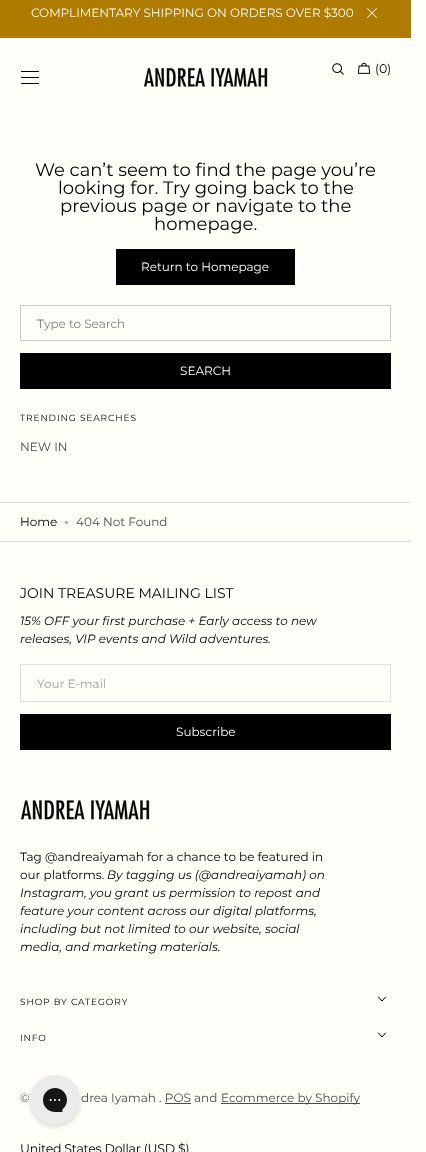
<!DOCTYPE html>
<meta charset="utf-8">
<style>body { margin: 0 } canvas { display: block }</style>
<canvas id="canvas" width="426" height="1152"></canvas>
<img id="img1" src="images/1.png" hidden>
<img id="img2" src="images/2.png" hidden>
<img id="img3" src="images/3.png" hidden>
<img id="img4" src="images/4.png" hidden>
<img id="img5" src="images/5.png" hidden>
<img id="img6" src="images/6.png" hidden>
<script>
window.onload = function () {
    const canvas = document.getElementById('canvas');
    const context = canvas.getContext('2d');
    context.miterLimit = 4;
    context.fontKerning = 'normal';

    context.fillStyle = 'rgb(255, 254, 248)';
    context.fillRect(0, 0, 426, 1152);
    context.fillStyle = 'rgb(175, 122, 0)';
    context.fillRect(0, 0, 411, 38);
    context.drawImage(document.getElementById('img1'), 367, 8, 10, 10);
    context.fillStyle = 'rgb(0, 0, 0)';
    context.fillRect(21, 71, 18, 1);
    context.fillRect(21, 77, 18, 1);
    context.fillRect(21, 83, 18, 1);
    context.drawImage(document.getElementById('img2'), 143, 68, 125, 19);
    context.drawImage(document.getElementById('img3'), 332, 63, 12, 12);
    context.drawImage(document.getElementById('img4'), 357, 62, 14, 12);
    context.fillRect(116, 249, 179, 36);
    context.strokeStyle = 'rgb(204, 204, 204)';
    context.strokeRect(20.5, 305.5, 370, 35);
    context.fillRect(20, 353, 371, 36);
    context.fillStyle = 'rgb(225, 225, 225)';
    context.fillRect(0, 502, 411, 1);
    context.fillStyle = 'rgb(179, 178, 174)';
    context.fillRect(65, 521, 3, 3);
    context.fillStyle = 'rgb(225, 225, 225)';
    context.fillRect(0, 541, 411, 1);
    context.strokeStyle = 'rgb(225, 225, 225)';
    context.strokeRect(20.5, 664.5, 370, 37);
    context.fillStyle = 'rgb(0, 0, 0)';
    context.fillRect(20, 714, 371, 36);
    context.drawImage(document.getElementById('img5'), 21, 800, 129, 20);
    context.beginPath();
    context.moveTo(385.5, 997);
    context.lineTo(382, 1001);
    context.lineTo(378.5, 997);
    context.strokeStyle = 'rgb(0, 0, 0)';
    context.lineCap = 'round';
    context.lineJoin = 'round';
    context.stroke();
    context.beginPath();
    context.moveTo(385.5, 1033);
    context.lineTo(382, 1037);
    context.lineTo(378.5, 1033);
    context.stroke();
    context.fillStyle = 'rgb(77, 76, 74)';
    context.fillRect(221, 1103, 139, 1);
    context.font = '12px Montserrat';
    context.fillStyle = 'rgb(255, 254, 248)';
    context.fillText('COMPLIMENTARY SHIPPING ON ORDERS OVER $300', 31, 17);
    context.letterSpacing = '-0.25px';
    context.font = '12.6px Montserrat';
    context.fillStyle = 'rgb(0, 0, 0)';
    context.fillText('(0)', 375, 73);
    context.letterSpacing = '0px';
    context.font = '18px Montserrat';
    context.fillText('We can’t seem to find the page you’re', 35, 176);
    context.fillText('looking for. Try going back to the', 58, 194);
    context.fillText('previous page or navigate to the', 60, 212);
    context.fillText('homepage.', 154, 230);
    context.font = '12px Montserrat';
    context.fillStyle = 'rgb(255, 255, 255)';
    context.fillText('Return to Homepage', 141, 271);
    context.fillStyle = 'rgb(128, 127, 124)';
    context.fillText('Type to Search', 37, 328);
    context.fillStyle = 'rgb(255, 255, 255)';
    context.fillText('SEARCH', 180, 375);
    context.letterSpacing = '0.9px';
    context.font = '9px Montserrat';
    context.fillStyle = 'rgb(0, 0, 0)';
    context.fillText('TRENDING SEARCHES', 20, 421);
    context.letterSpacing = '0px';
    context.font = '12px Montserrat';
    context.fillStyle = 'rgb(77, 77, 77)';
    context.fillText('NEW IN', 20, 451);
    context.fillStyle = 'rgb(0, 0, 0)';
    context.fillText('Home', 20, 526);
    context.fillStyle = 'rgb(77, 77, 77)';
    context.fillText('404 Not Found', 76, 526);
    context.font = '14px Montserrat';
    context.fillStyle = 'rgb(0, 0, 0)';
    context.fillText('JOIN TREASURE MAILING LIST', 20, 598);
    context.font = 'italic 12px Montserrat';
    context.fillText('15% OFF your first purchase + Early access to new', 20, 625);
    context.fillText('releases, VIP events and Wild adventures.', 20, 643);
    context.font = '12px Montserrat';
    context.fillStyle = 'rgb(163, 163, 159)';
    context.fillText('Your E-mail', 37, 688);
    context.fillStyle = 'rgb(255, 255, 255)';
    context.fillText('Subscribe', 176, 736);
    context.fillStyle = 'rgb(0, 0, 0)';
    context.fillText('Tag @andreaiyamah for a chance to be featured in', 20, 861);
    context.fillText('our platforms.', 20, 879);
    context.font = 'italic 12px Montserrat';
    context.fillText('By tagging us (@andreaiyamah) on', 107, 879);
    context.fillText('Instagram, you grant us permission to repost and', 20, 897);
    context.fillText('feature your content across our digital platforms,', 20, 915);
    context.fillText('including but not limited to our website, social', 20, 933);
    context.fillText('media, and marketing materials.', 20, 951);
    context.letterSpacing = '0.9px';
    context.font = '9px Montserrat';
    context.fillText('SHOP BY CATEGORY', 20, 1005);
    context.fillText('INFO', 20, 1041);
    context.letterSpacing = '0px';
    context.font = '12px Montserrat';
    context.fillStyle = 'rgb(77, 77, 77)';
    context.fillText('©', 20, 1102);
    context.fillText('drea Iyamah . POS and', 81, 1102);
    context.fillText('Ecommerce by Shopify', 221, 1102);
    context.fillStyle = 'rgb(77, 76, 74)';
    context.fillRect(165, 1103, 26, 1);
    context.letterSpacing = '-0.25px';
    context.font = '12.6px Montserrat';
    context.fillStyle = 'rgb(0, 0, 0)';
    context.fillText('United States Dollar (USD $)', 20, 1153);
    context.drawImage(document.getElementById('img6'), 28, 1075, 54, 54);
};
</script>
